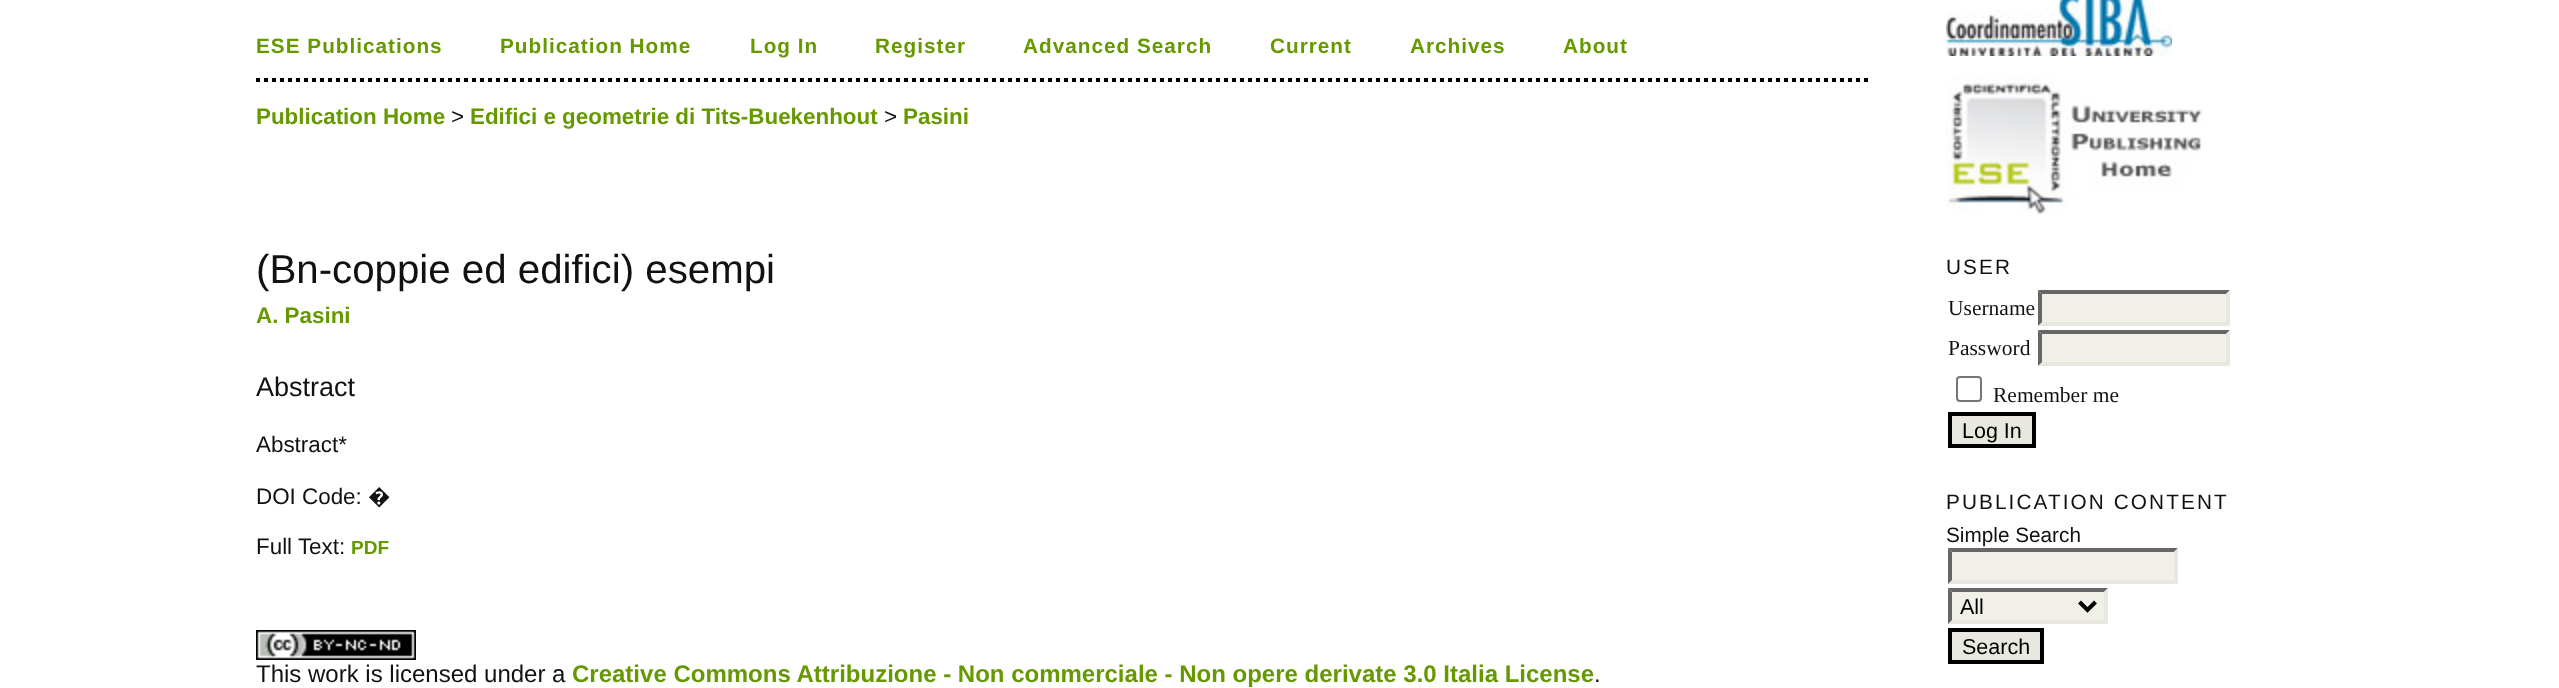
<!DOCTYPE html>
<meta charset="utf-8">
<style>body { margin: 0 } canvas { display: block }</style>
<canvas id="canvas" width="2559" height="688"></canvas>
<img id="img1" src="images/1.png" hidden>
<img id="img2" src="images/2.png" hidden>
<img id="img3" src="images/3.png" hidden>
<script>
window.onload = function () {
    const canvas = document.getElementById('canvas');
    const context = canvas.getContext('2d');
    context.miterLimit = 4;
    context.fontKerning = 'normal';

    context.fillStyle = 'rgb(255, 255, 255)';
    context.fillRect(0, 0, 2559, 688);
    context.beginPath();
    context.moveTo(256, 80);
    context.lineTo(1868, 80);
    context.strokeStyle = 'rgb(0, 0, 0)';
    context.lineWidth = 4;
    context.setLineDash([4, 4]);
    context.stroke();
    context.drawImage(document.getElementById('img1'), 256, 630, 160, 30);
    context.drawImage(document.getElementById('img2'), 1946, 0, 226, 56);
    context.drawImage(document.getElementById('img3'), 1946, 78, 257, 136);
    context.fillStyle = 'rgb(240, 240, 232)';
    context.fillRect(2038, 290, 192, 36);
    context.fillStyle = 'rgb(102, 102, 102)';
    context.beginPath();
    context.moveTo(2038, 290);
    context.lineTo(2230, 290);
    context.lineTo(2226, 294);
    context.lineTo(2042, 294);
    context.closePath();
    context.fill();
    context.fillStyle = 'rgb(232, 232, 225)';
    context.beginPath();
    context.moveTo(2230, 290);
    context.lineTo(2230, 326);
    context.lineTo(2226, 322);
    context.lineTo(2226, 294);
    context.closePath();
    context.fill();
    context.beginPath();
    context.moveTo(2230, 326);
    context.lineTo(2038, 326);
    context.lineTo(2042, 322);
    context.lineTo(2226, 322);
    context.closePath();
    context.fill();
    context.fillStyle = 'rgb(102, 102, 102)';
    context.beginPath();
    context.moveTo(2038, 326);
    context.lineTo(2038, 290);
    context.lineTo(2042, 294);
    context.lineTo(2042, 322);
    context.closePath();
    context.fill();
    context.fillStyle = 'rgb(240, 240, 232)';
    context.fillRect(2038, 330, 192, 36);
    context.fillStyle = 'rgb(102, 102, 102)';
    context.beginPath();
    context.moveTo(2038, 330);
    context.lineTo(2230, 330);
    context.lineTo(2226, 334);
    context.lineTo(2042, 334);
    context.closePath();
    context.fill();
    context.fillStyle = 'rgb(232, 232, 225)';
    context.beginPath();
    context.moveTo(2230, 330);
    context.lineTo(2230, 366);
    context.lineTo(2226, 362);
    context.lineTo(2226, 334);
    context.closePath();
    context.fill();
    context.beginPath();
    context.moveTo(2230, 366);
    context.lineTo(2038, 366);
    context.lineTo(2042, 362);
    context.lineTo(2226, 362);
    context.closePath();
    context.fill();
    context.fillStyle = 'rgb(102, 102, 102)';
    context.beginPath();
    context.moveTo(2038, 366);
    context.lineTo(2038, 330);
    context.lineTo(2042, 334);
    context.lineTo(2042, 362);
    context.closePath();
    context.fill();
    context.beginPath();
    context.roundRect(1957, 377, 24, 24, 3);
    context.strokeStyle = 'rgb(118, 118, 118)';
    context.lineWidth = 2;
    context.setLineDash([]);
    context.stroke();
    context.fillStyle = 'rgb(232, 232, 225)';
    context.beginPath();
    context.rect(1950, 414, 84, 32);
    context.fill();
    context.strokeStyle = 'rgb(0, 0, 0)';
    context.lineWidth = 4;
    context.stroke();
    context.fillStyle = 'rgb(240, 240, 232)';
    context.fillRect(1948, 548, 230, 36);
    context.fillStyle = 'rgb(102, 102, 102)';
    context.beginPath();
    context.moveTo(1948, 548);
    context.lineTo(2178, 548);
    context.lineTo(2174, 552);
    context.lineTo(1952, 552);
    context.closePath();
    context.fill();
    context.fillStyle = 'rgb(232, 232, 225)';
    context.beginPath();
    context.moveTo(2178, 548);
    context.lineTo(2178, 584);
    context.lineTo(2174, 580);
    context.lineTo(2174, 552);
    context.closePath();
    context.fill();
    context.beginPath();
    context.moveTo(2178, 584);
    context.lineTo(1948, 584);
    context.lineTo(1952, 580);
    context.lineTo(2174, 580);
    context.closePath();
    context.fill();
    context.fillStyle = 'rgb(102, 102, 102)';
    context.beginPath();
    context.moveTo(1948, 584);
    context.lineTo(1948, 548);
    context.lineTo(1952, 552);
    context.lineTo(1952, 580);
    context.closePath();
    context.fill();
    context.fillStyle = 'rgb(240, 240, 232)';
    context.fillRect(1948, 588, 160, 36);
    context.fillStyle = 'rgb(102, 102, 102)';
    context.beginPath();
    context.moveTo(1948, 588);
    context.lineTo(2108, 588);
    context.lineTo(2104, 592);
    context.lineTo(1952, 592);
    context.closePath();
    context.fill();
    context.fillStyle = 'rgb(232, 232, 225)';
    context.beginPath();
    context.moveTo(2108, 588);
    context.lineTo(2108, 624);
    context.lineTo(2104, 620);
    context.lineTo(2104, 592);
    context.closePath();
    context.fill();
    context.beginPath();
    context.moveTo(2108, 624);
    context.lineTo(1948, 624);
    context.lineTo(1952, 620);
    context.lineTo(2104, 620);
    context.closePath();
    context.fill();
    context.fillStyle = 'rgb(102, 102, 102)';
    context.beginPath();
    context.moveTo(1948, 624);
    context.lineTo(1948, 588);
    context.lineTo(1952, 592);
    context.lineTo(1952, 620);
    context.closePath();
    context.fill();
    context.beginPath();
    context.moveTo(2079.5, 602);
    context.lineTo(2087.5, 610);
    context.lineTo(2095.5, 602);
    context.stroke();
    context.fillStyle = 'rgb(232, 232, 225)';
    context.beginPath();
    context.rect(1950, 630, 92, 32);
    context.fill();
    context.stroke();
    context.letterSpacing = '1px';
    context.font = 'bold 20.75px Liberation Sans';
    context.fillStyle = 'rgb(102, 153, 0)';
    context.fillText('ESE Publications', 256, 53);
    context.fillText('Publication Home', 500, 53);
    context.fillText('Log In', 750, 53);
    context.fillText('Register', 875, 53);
    context.fillText('Advanced Search', 1023, 53);
    context.fillText('Current', 1270, 53);
    context.fillText('Archives', 1410, 53);
    context.fillText('About', 1563, 53);
    context.letterSpacing = '0px';
    context.font = 'bold 22.4px Liberation Sans';
    context.fillText('Publication Home', 256, 124);
    context.font = '22.4px Liberation Sans';
    context.fillStyle = 'rgb(17, 17, 17)';
    context.fillText('>', 451, 124);
    context.font = 'bold 22.4px Liberation Sans';
    context.fillStyle = 'rgb(102, 153, 0)';
    context.fillText('Edifici e geometrie di Tits-Buekenhout', 470, 124);
    context.font = '22.4px Liberation Sans';
    context.fillStyle = 'rgb(17, 17, 17)';
    context.fillText('>', 884, 124);
    context.font = 'bold 22.4px Liberation Sans';
    context.fillStyle = 'rgb(102, 153, 0)';
    context.fillText('Pasini', 903, 124);
    context.font = '40.25px Liberation Sans';
    context.fillStyle = 'rgb(17, 17, 17)';
    context.fillText('(Bn-coppie ed edifici) esempi', 256, 283);
    context.font = 'bold 22.4px Liberation Sans';
    context.fillStyle = 'rgb(102, 153, 0)';
    context.fillText('A. Pasini', 256, 323);
    context.font = '27px Liberation Sans';
    context.fillStyle = 'rgb(17, 17, 17)';
    context.fillText('Abstract', 256, 396);
    context.font = '22.4px Liberation Sans';
    context.fillText('Abstract*', 256, 452);
    context.fillText('DOI Code:', 256, 504);
    context.font = '22.4px Noto Sans';
    context.fillText('�', 368, 504);
    context.font = '22.4px Liberation Sans';
    context.fillText('Full Text:', 256, 554);
    context.font = 'bold 19px Liberation Sans';
    context.fillStyle = 'rgb(102, 153, 0)';
    context.fillText('PDF', 351, 554);
    context.font = '24px Liberation Sans';
    context.fillStyle = 'rgb(17, 17, 17)';
    context.fillText('This work is licensed under a', 256, 682);
    context.font = 'bold 24px Liberation Sans';
    context.fillStyle = 'rgb(102, 153, 0)';
    context.fillText('Creative Commons Attribuzione - Non commerciale - Non opere derivate 3.0 Italia License', 572, 682);
    context.font = '24px Liberation Sans';
    context.fillStyle = 'rgb(17, 17, 17)';
    context.fillText('.', 1594, 682);
    context.letterSpacing = '2.1px';
    context.font = '20.75px Liberation Sans';
    context.fillText('USER', 1946, 274);
    context.letterSpacing = '0px';
    context.font = '21.5px Liberation Serif';
    context.fillText('Username', 1948, 315);
    context.fillText('Password', 1948, 355);
    context.fillText('Remember me', 1993, 402);
    context.font = '21.5px Liberation Sans';
    context.fillStyle = 'rgb(0, 0, 0)';
    context.fillText('Log In', 1962, 438);
    context.letterSpacing = '2.1px';
    context.font = '20.75px Liberation Sans';
    context.fillStyle = 'rgb(17, 17, 17)';
    context.fillText('PUBLICATION CONTENT', 1946, 509);
    context.letterSpacing = '0px';
    context.fillText('Simple Search', 1946, 542);
    context.font = '21.5px Liberation Sans';
    context.fillStyle = 'rgb(0, 0, 0)';
    context.fillText('All', 1960, 614);
    context.fillText('Search', 1962, 654);
};
</script>
